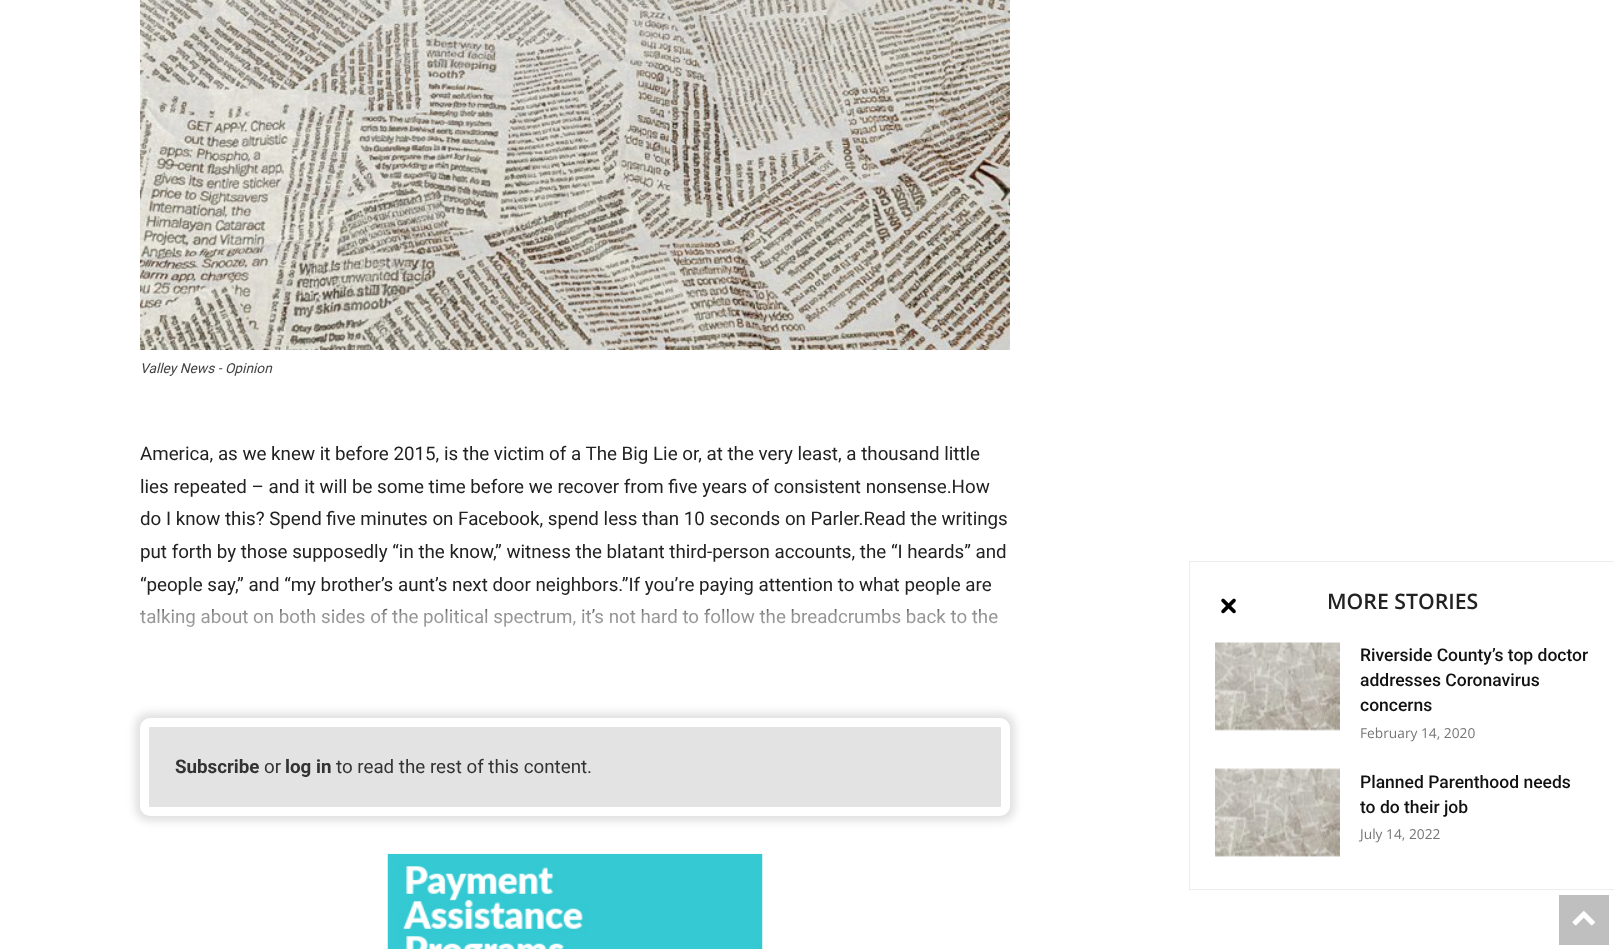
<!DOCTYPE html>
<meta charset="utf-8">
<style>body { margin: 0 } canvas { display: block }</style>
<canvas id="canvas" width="1614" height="949"></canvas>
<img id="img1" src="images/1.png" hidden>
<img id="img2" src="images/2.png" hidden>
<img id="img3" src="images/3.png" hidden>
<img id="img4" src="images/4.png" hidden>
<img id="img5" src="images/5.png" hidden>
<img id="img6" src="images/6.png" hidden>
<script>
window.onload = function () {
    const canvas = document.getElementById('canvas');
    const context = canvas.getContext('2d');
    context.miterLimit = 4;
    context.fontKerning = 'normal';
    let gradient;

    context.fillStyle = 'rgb(255, 255, 255)';
    context.fillRect(0, 0, 1614, 949);
    context.drawImage(document.getElementById('img1'), 140, 0, 870, 350);
    context.fillStyle = 'rgba(0, 0, 0, 0.12)';
    context.filter = 'blur(4.5px)';
    context.beginPath();
    context.roundRect(135, 713, 880, 108, 14);
    context.fill();
    context.filter = 'none';
    context.fillStyle = 'rgb(227, 227, 227)';
    context.beginPath();
    context.roundRect(144.5, 722.5, 861, 89, 5.5);
    context.fill();
    context.strokeStyle = 'rgb(255, 255, 255)';
    context.lineWidth = 9;
    context.stroke();
    context.drawImage(document.getElementById('img2'), 387, 853, 376, 96);
    context.fillStyle = 'rgb(237, 237, 237)';
    context.fillRect(1189, 561, 425, 1);
    context.fillRect(1189, 889, 425, 1);
    context.fillRect(1189, 561, 1, 329);
    context.drawImage(document.getElementById('img3'), 1221, 598, 15, 16);
    context.drawImage(document.getElementById('img4'), 1215, 642, 125, 89);
    context.drawImage(document.getElementById('img5'), 1215, 768, 125, 89);
    context.fillStyle = 'rgb(191, 191, 191)';
    context.fillRect(1559, 895, 50, 50);
    context.drawImage(document.getElementById('img6'), 1572, 911, 23, 15);
    context.font = 'italic 13.75px Roboto';
    context.fillStyle = 'rgb(68, 68, 68)';
    context.fillText('Valley News - Opinion', 140, 373);
    context.font = '18.75px Roboto';
    context.fillStyle = 'rgb(34, 34, 34)';
    context.fillText('America, as we knew it before 2015, is the victim of a The Big Lie or, at the very least, a thousand little', 140, 460);
    context.fillText('lies repeated – and it will be some time before we recover from five years of consistent nonsense.How', 140, 493);
    context.fillText('do I know this? Spend five minutes on Facebook, spend less than 10 seconds on Parler.Read the writings', 140, 525);
    context.fillText('put forth by those supposedly “in the know,” witness the blatant third-person accounts, the “I heards” and', 140, 558);
    context.fillText('“people say,” and “my brother’s aunt’s next door neighbors.”If you’re paying attention to what people are', 140, 591);
    context.fillText('talking about on both sides of the political spectrum, it’s not hard to follow the breadcrumbs back to the', 140, 623);
    gradient = context.createLinearGradient(575, 605, 575, 816);
    gradient.addColorStop(0, 'rgba(255, 255, 255, 0)');
    gradient.addColorStop(0.04, 'rgba(255, 255, 255, 0.5)');
    gradient.addColorStop(0.49, 'rgb(255, 255, 255)');
    gradient.addColorStop(1, 'rgb(255, 255, 255)');
    context.fillStyle = gradient;
    context.fillRect(140, 608, 858, 19);
    context.font = 'bold 18.75px Roboto';
    context.fillStyle = 'rgb(51, 51, 51)';
    context.fillText('Subscribe', 175, 773);
    context.font = '18.75px Roboto';
    context.fillText('or', 264, 773);
    context.font = 'bold 18.75px Roboto';
    context.fillText('log in', 285, 773);
    context.font = '18.75px Roboto';
    context.fillText('to read the rest of this content.', 336, 773);
    context.font = '600 21.25px Open Sans';
    context.fillStyle = 'rgb(34, 34, 34)';
    context.fillText('MORE STORIES', 1327, 609);
    context.font = '500 17.5px Roboto';
    context.fillStyle = 'rgb(17, 17, 17)';
    context.fillText('Riverside County’s top doctor', 1360, 661);
    context.fillText('addresses Coronavirus', 1360, 686);
    context.fillText('concerns', 1360, 711);
    context.font = '13.75px Open Sans';
    context.fillStyle = 'rgb(118, 118, 118)';
    context.fillText('February 14, 2020', 1360, 738);
    context.font = '500 17.5px Roboto';
    context.fillStyle = 'rgb(17, 17, 17)';
    context.fillText('Planned Parenthood needs', 1360, 788);
    context.fillText('to do their job', 1360, 813);
    context.font = '13.75px Open Sans';
    context.fillStyle = 'rgb(118, 118, 118)';
    context.fillText('July 14, 2022', 1360, 839);
};
</script>
